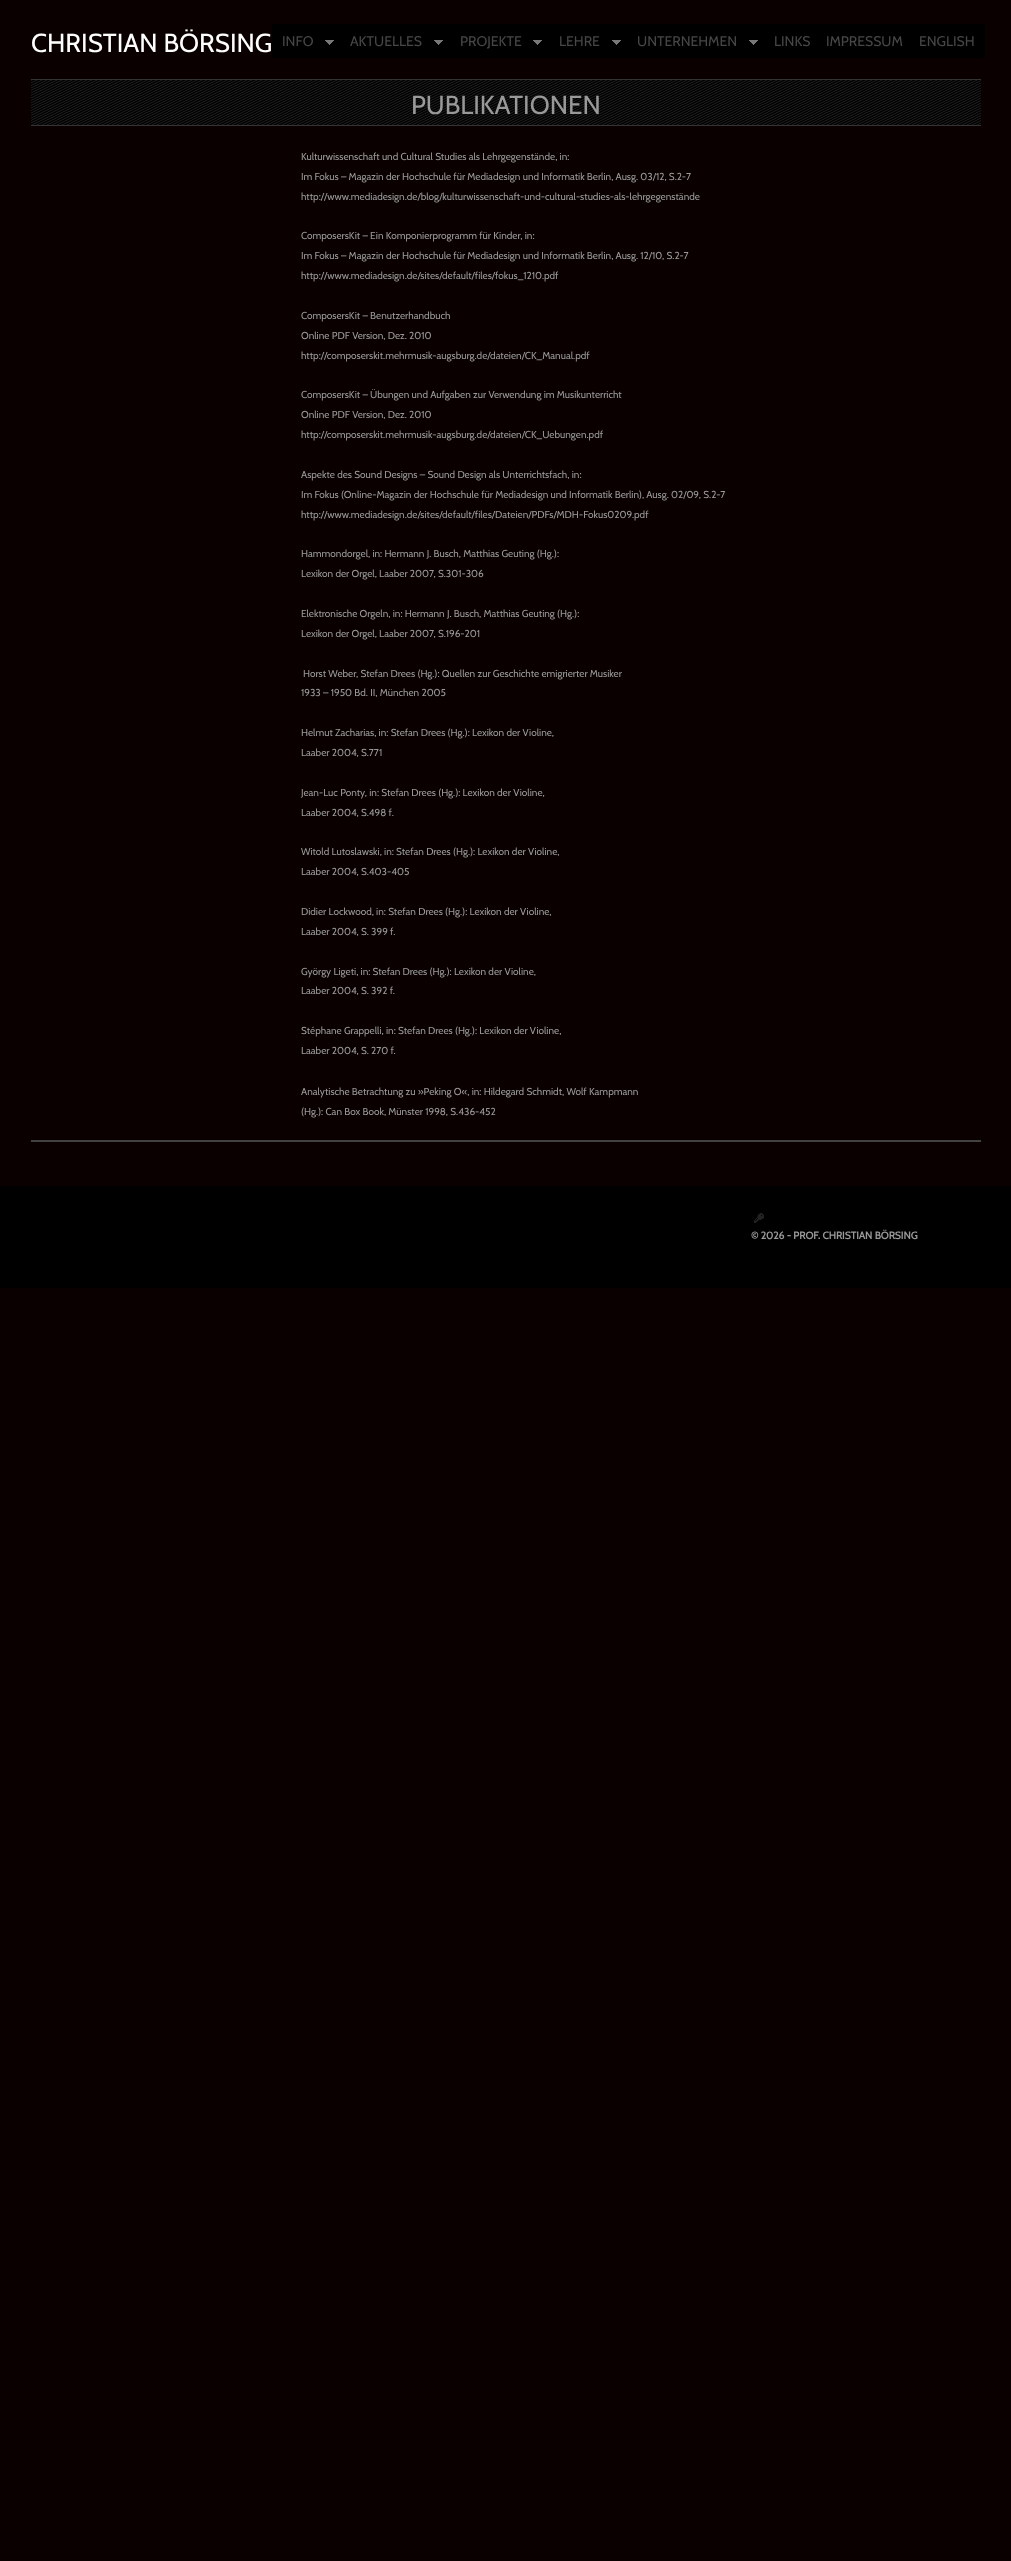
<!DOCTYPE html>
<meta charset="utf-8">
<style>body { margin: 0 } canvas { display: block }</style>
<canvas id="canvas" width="1011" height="2561"></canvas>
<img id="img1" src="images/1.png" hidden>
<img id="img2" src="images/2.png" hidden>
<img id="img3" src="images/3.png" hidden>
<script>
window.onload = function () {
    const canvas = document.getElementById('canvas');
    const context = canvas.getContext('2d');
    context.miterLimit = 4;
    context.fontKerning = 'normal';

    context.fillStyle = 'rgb(10, 0, 0)';
    context.fillRect(0, 0, 1011, 2561);
    context.fillStyle = 'rgb(0, 0, 0)';
    context.fillRect(272, 24, 713, 34);
    context.drawImage(document.getElementById('img1'), 325, 40, 9, 5);
    context.drawImage(document.getElementById('img1'), 434, 40, 9, 5);
    context.drawImage(document.getElementById('img1'), 533, 40, 9, 5);
    context.drawImage(document.getElementById('img1'), 612, 40, 9, 5);
    context.drawImage(document.getElementById('img1'), 749, 40, 9, 5);
    context.drawImage(document.getElementById('img2'), 31, 80, 950, 45);
    context.fillStyle = 'rgb(51, 51, 51)';
    context.fillRect(31, 79, 950, 1);
    context.fillRect(31, 125, 950, 1);
    context.fillStyle = 'rgb(66, 66, 66)';
    context.fillRect(31, 1140, 950, 2);
    context.fillStyle = 'rgb(0, 0, 0)';
    context.fillRect(0, 1186, 1011, 102);
    context.drawImage(document.getElementById('img3'), 754, 1213, 10, 10);
    context.font = '26px Cabin';
    context.fillStyle = 'rgb(255, 255, 255)';
    context.fillText('CHRISTIAN BÖRSING', 31, 52);
    context.font = '14px Cabin';
    context.fillStyle = 'rgb(71, 71, 71)';
    context.fillText('INFO', 282, 46);
    context.fillText('AKTUELLES', 350, 46);
    context.fillText('PROJEKTE', 460, 46);
    context.fillText('LEHRE', 559, 46);
    context.fillText('UNTERNEHMEN', 637, 46);
    context.fillText('LINKS', 774, 46);
    context.fillText('IMPRESSUM', 826, 46);
    context.fillText('ENGLISH', 919, 46);
    context.font = '26px Cabin';
    context.fillStyle = 'rgb(153, 153, 153)';
    context.fillText('PUBLIKATIONEN', 411, 114);
    context.font = '10px Cabin';
    context.fillText('Kulturwissenschaft und Cultural Studies als Lehrgegenstände, in:', 301, 160);
    context.fillText('Im Fokus – Magazin der Hochschule für Mediadesign und Informatik Berlin, Ausg. 03/12, S.2-7', 301, 180);
    context.fillText('http://www.mediadesign.de/blog/kulturwissenschaft-und-cultural-studies-als-lehrgegenstände', 301, 200);
    context.fillText('ComposersKit – Ein Komponierprogramm für Kinder, in:', 301, 239);
    context.fillText('Im Fokus – Magazin der Hochschule für Mediadesign und Informatik Berlin, Ausg. 12/10, S.2-7', 301, 259);
    context.fillText('http://www.mediadesign.de/sites/default/files/fokus_1210.pdf', 301, 279);
    context.fillText('ComposersKit – Benutzerhandbuch', 301, 319);
    context.fillText('Online PDF Version, Dez. 2010', 301, 339);
    context.fillText('http://composerskit.mehrmusik-augsburg.de/dateien/CK_Manual.pdf', 301, 359);
    context.fillText('ComposersKit – Übungen und Aufgaben zur Verwendung im Musikunterricht', 301, 398);
    context.fillText('Online PDF Version, Dez. 2010', 301, 418);
    context.fillText('http://composerskit.mehrmusik-augsburg.de/dateien/CK_Uebungen.pdf', 301, 438);
    context.fillText('Aspekte des Sound Designs – Sound Design als Unterrichtsfach, in:', 301, 478);
    context.fillText('Im Fokus (Online-Magazin der Hochschule für Mediadesign und Informatik Berlin), Ausg. 02/09, S.2-7', 301, 498);
    context.fillText('http://www.mediadesign.de/sites/default/files/Dateien/PDFs/MDH-Fokus0209.pdf', 301, 518);
    context.fillText('Hammondorgel, in: Hermann J. Busch, Matthias Geuting (Hg.):', 301, 557);
    context.fillText('Lexikon der Orgel, Laaber 2007, S.301-306', 301, 577);
    context.fillText('Elektronische Orgeln, in: Hermann J. Busch, Matthias Geuting (Hg.):', 301, 617);
    context.fillText('Lexikon der Orgel, Laaber 2007, S.196-201', 301, 637);
    context.fillText('Horst Weber, Stefan Drees (Hg.): Quellen zur Geschichte emigrierter Musiker', 303, 677);
    context.fillText('1933 – 1950 Bd. II, München 2005', 301, 696);
    context.fillText('Helmut Zacharias, in: Stefan Drees (Hg.): Lexikon der Violine,', 301, 736);
    context.fillText('Laaber 2004, S.771', 301, 756);
    context.fillText('Jean-Luc Ponty, in: Stefan Drees (Hg.): Lexikon der Violine,', 301, 796);
    context.fillText('Laaber 2004, S.498 f.', 301, 816);
    context.fillText('Witold Lutoslawski, in: Stefan Drees (Hg.): Lexikon der Violine,', 301, 855);
    context.fillText('Laaber 2004, S.403-405', 301, 875);
    context.fillText('Didier Lockwood, in: Stefan Drees (Hg.): Lexikon der Violine,', 301, 915);
    context.fillText('Laaber 2004, S. 399 f.', 301, 935);
    context.fillText('György Ligeti, in: Stefan Drees (Hg.): Lexikon der Violine,', 301, 975);
    context.fillText('Laaber 2004, S. 392 f.', 301, 994);
    context.fillText('Stéphane Grappelli, in: Stefan Drees (Hg.): Lexikon der Violine,', 301, 1034);
    context.fillText('Laaber 2004, S. 270 f.', 301, 1054);
    context.fillText('Analytische Betrachtung zu »Peking O«, in: Hildegard Schmidt, Wolf Kampmann', 301, 1095);
    context.fillText('(Hg.): Can Box Book, Münster 1998, S.436-452', 301, 1115);
    context.font = 'bold 10.25px Cabin';
    context.fillText('© 2026 - PROF. CHRISTIAN BÖRSING', 751, 1239);
};
</script>
